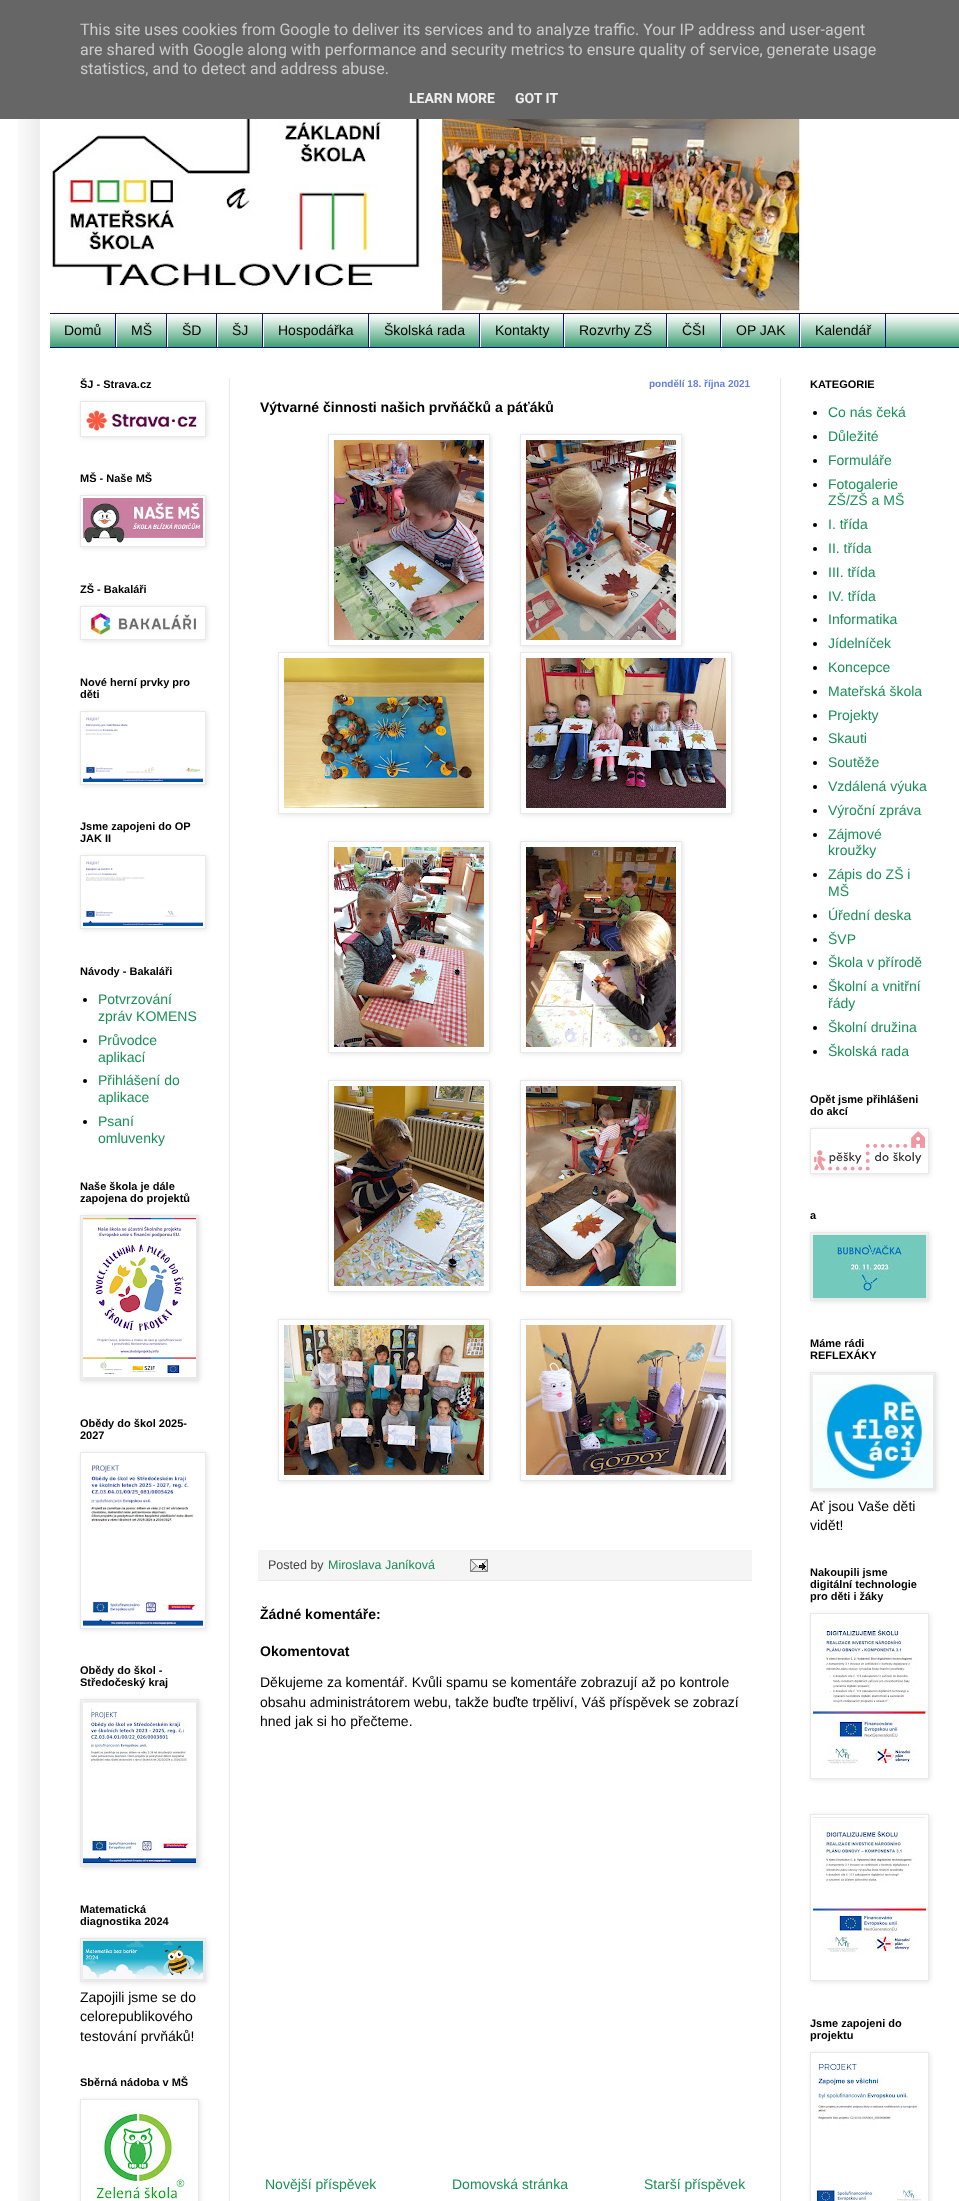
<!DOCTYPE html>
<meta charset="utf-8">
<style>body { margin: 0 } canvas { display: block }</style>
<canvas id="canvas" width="959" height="2201"></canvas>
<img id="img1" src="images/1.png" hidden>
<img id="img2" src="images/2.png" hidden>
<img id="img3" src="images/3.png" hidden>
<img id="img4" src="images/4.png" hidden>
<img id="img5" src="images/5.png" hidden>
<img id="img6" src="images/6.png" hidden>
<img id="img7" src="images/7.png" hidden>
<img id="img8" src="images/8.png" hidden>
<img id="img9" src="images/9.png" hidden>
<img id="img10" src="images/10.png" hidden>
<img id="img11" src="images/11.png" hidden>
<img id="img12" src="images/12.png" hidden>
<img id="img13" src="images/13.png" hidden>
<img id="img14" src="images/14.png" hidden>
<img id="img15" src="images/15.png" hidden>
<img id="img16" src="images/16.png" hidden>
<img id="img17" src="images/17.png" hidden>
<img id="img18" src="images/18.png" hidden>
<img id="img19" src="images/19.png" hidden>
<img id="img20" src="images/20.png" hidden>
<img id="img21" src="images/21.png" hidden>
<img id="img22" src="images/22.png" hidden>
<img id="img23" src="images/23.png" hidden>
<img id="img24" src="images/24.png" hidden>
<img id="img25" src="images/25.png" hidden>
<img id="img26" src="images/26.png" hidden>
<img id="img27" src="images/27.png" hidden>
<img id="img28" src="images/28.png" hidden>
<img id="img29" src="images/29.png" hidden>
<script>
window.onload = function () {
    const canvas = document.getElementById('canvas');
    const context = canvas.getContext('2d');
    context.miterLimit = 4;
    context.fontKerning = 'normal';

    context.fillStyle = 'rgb(255, 255, 255)';
    context.fillRect(0, 0, 959, 2201);
    context.save();
    context.beginPath();
    context.rect(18, 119, 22, 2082);
    context.clip();
    context.fillStyle = 'rgba(0, 0, 0, 0.15)';
    context.filter = 'blur(20px)';
    context.beginPath();
    context.rect(40, 30, 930, 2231);
    context.fill();
    context.filter = 'none';
    context.restore();
    context.fillStyle = 'rgb(102, 102, 102)';
    context.fillRect(0, 0, 959, 119);
    context.drawImage(document.getElementById('img1'), 50, 119, 752, 194);
    context.fillStyle = 'rgb(26, 142, 87)';
    context.fillRect(50, 315, 909, 32);
    context.drawImage(document.getElementById('img2'), 50, 314, 909, 33);
    context.fillStyle = 'rgb(16, 16, 131)';
    context.fillRect(50, 313, 909, 1);
    context.fillRect(50, 347, 909, 1);
    context.fillRect(115, 314, 1, 33);
    context.fillRect(166, 314, 1, 33);
    context.fillStyle = 'rgb(255, 255, 255)';
    context.fillRect(116, 314, 1, 33);
    context.fillStyle = 'rgb(16, 16, 131)';
    context.fillRect(216, 314, 1, 33);
    context.fillStyle = 'rgb(255, 255, 255)';
    context.fillRect(167, 314, 1, 33);
    context.fillStyle = 'rgb(16, 16, 131)';
    context.fillRect(262, 314, 1, 33);
    context.fillStyle = 'rgb(255, 255, 255)';
    context.fillRect(217, 314, 1, 33);
    context.fillStyle = 'rgb(16, 16, 131)';
    context.fillRect(368, 314, 1, 33);
    context.fillStyle = 'rgb(255, 255, 255)';
    context.fillRect(263, 314, 1, 33);
    context.fillStyle = 'rgb(16, 16, 131)';
    context.fillRect(479, 314, 1, 33);
    context.fillStyle = 'rgb(255, 255, 255)';
    context.fillRect(369, 314, 1, 33);
    context.fillStyle = 'rgb(16, 16, 131)';
    context.fillRect(563, 314, 1, 33);
    context.fillStyle = 'rgb(255, 255, 255)';
    context.fillRect(480, 314, 1, 33);
    context.fillStyle = 'rgb(16, 16, 131)';
    context.fillRect(666, 314, 1, 33);
    context.fillStyle = 'rgb(255, 255, 255)';
    context.fillRect(564, 314, 1, 33);
    context.fillStyle = 'rgb(16, 16, 131)';
    context.fillRect(720, 314, 1, 33);
    context.fillStyle = 'rgb(255, 255, 255)';
    context.fillRect(667, 314, 1, 33);
    context.fillStyle = 'rgb(16, 16, 131)';
    context.fillRect(799, 314, 1, 33);
    context.fillStyle = 'rgb(255, 255, 255)';
    context.fillRect(721, 314, 1, 33);
    context.fillStyle = 'rgb(16, 16, 131)';
    context.fillRect(885, 314, 1, 33);
    context.fillStyle = 'rgb(255, 255, 255)';
    context.fillRect(800, 314, 1, 33);
    context.save();
    context.beginPath();
    context.moveTo(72, 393);
    context.lineTo(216, 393);
    context.lineTo(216, 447);
    context.lineTo(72, 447);
    context.closePath();
    context.moveTo(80, 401);
    context.lineTo(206, 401);
    context.lineTo(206, 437);
    context.lineTo(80, 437);
    context.closePath();
    context.clip('evenodd');
    context.fillStyle = 'rgba(0, 0, 0, 0.1)';
    context.filter = 'blur(2.5px)';
    context.beginPath();
    context.rect(81, 402, 126, 36);
    context.fill();
    context.filter = 'none';
    context.restore();
    context.strokeStyle = 'rgb(233, 233, 233)';
    context.strokeRect(80.5, 401.5, 125, 35);
    context.drawImage(document.getElementById('img3'), 83, 404, 117, 30);
    context.save();
    context.beginPath();
    context.moveTo(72, 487);
    context.lineTo(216, 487);
    context.lineTo(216, 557);
    context.lineTo(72, 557);
    context.closePath();
    context.moveTo(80, 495);
    context.lineTo(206, 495);
    context.lineTo(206, 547);
    context.lineTo(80, 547);
    context.closePath();
    context.clip('evenodd');
    context.fillStyle = 'rgba(0, 0, 0, 0.1)';
    context.filter = 'blur(2.5px)';
    context.beginPath();
    context.rect(81, 496, 126, 52);
    context.fill();
    context.filter = 'none';
    context.restore();
    context.strokeRect(80.5, 495.5, 125, 51);
    context.drawImage(document.getElementById('img4'), 83, 498, 120, 45);
    context.save();
    context.beginPath();
    context.moveTo(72, 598);
    context.lineTo(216, 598);
    context.lineTo(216, 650);
    context.lineTo(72, 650);
    context.closePath();
    context.moveTo(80, 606);
    context.lineTo(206, 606);
    context.lineTo(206, 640);
    context.lineTo(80, 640);
    context.closePath();
    context.clip('evenodd');
    context.fillStyle = 'rgba(0, 0, 0, 0.1)';
    context.filter = 'blur(2.5px)';
    context.beginPath();
    context.rect(81, 607, 126, 34);
    context.fill();
    context.filter = 'none';
    context.restore();
    context.strokeRect(80.5, 606.5, 125, 33);
    context.drawImage(document.getElementById('img5'), 89, 609, 107, 28);
    context.save();
    context.beginPath();
    context.moveTo(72, 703);
    context.lineTo(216, 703);
    context.lineTo(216, 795);
    context.lineTo(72, 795);
    context.closePath();
    context.moveTo(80, 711);
    context.lineTo(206, 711);
    context.lineTo(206, 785);
    context.lineTo(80, 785);
    context.closePath();
    context.clip('evenodd');
    context.fillStyle = 'rgba(0, 0, 0, 0.1)';
    context.filter = 'blur(2.5px)';
    context.beginPath();
    context.rect(81, 712, 126, 74);
    context.fill();
    context.filter = 'none';
    context.restore();
    context.strokeRect(80.5, 711.5, 125, 73);
    context.drawImage(document.getElementById('img6'), 83, 717, 120, 65);
    context.save();
    context.beginPath();
    context.moveTo(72, 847);
    context.lineTo(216, 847);
    context.lineTo(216, 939);
    context.lineTo(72, 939);
    context.closePath();
    context.moveTo(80, 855);
    context.lineTo(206, 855);
    context.lineTo(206, 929);
    context.lineTo(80, 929);
    context.closePath();
    context.clip('evenodd');
    context.fillStyle = 'rgba(0, 0, 0, 0.1)';
    context.filter = 'blur(2.5px)';
    context.beginPath();
    context.rect(81, 856, 126, 74);
    context.fill();
    context.filter = 'none';
    context.restore();
    context.strokeRect(80.5, 855.5, 125, 73);
    context.drawImage(document.getElementById('img7'), 83, 861, 120, 65);
    context.fillStyle = 'rgb(0, 0, 0)';
    context.beginPath();
    context.arc(85, 1000, 2, 0, 2 * Math.PI);
    context.fill();
    context.beginPath();
    context.arc(85, 1041, 2, 0, 2 * Math.PI);
    context.fill();
    context.beginPath();
    context.arc(85, 1081, 2, 0, 2 * Math.PI);
    context.fill();
    context.beginPath();
    context.arc(85, 1122, 2, 0, 2 * Math.PI);
    context.fill();
    context.fillStyle = 'rgba(0, 0, 0, 0.1)';
    context.filter = 'blur(2.5px)';
    context.beginPath();
    context.rect(81, 1216, 119, 166);
    context.fill();
    context.filter = 'none';
    context.strokeRect(80.5, 1215.5, 118, 165);
    context.drawImage(document.getElementById('img8'), 83, 1218, 113, 160);
    context.save();
    context.beginPath();
    context.moveTo(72, 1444);
    context.lineTo(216, 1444);
    context.lineTo(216, 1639);
    context.lineTo(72, 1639);
    context.closePath();
    context.moveTo(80, 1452);
    context.lineTo(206, 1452);
    context.lineTo(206, 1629);
    context.lineTo(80, 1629);
    context.closePath();
    context.clip('evenodd');
    context.filter = 'blur(2.5px)';
    context.beginPath();
    context.rect(81, 1453, 126, 177);
    context.fill();
    context.filter = 'none';
    context.restore();
    context.strokeRect(80.5, 1452.5, 125, 176);
    context.drawImage(document.getElementById('img9'), 83, 1465, 120, 161);
    context.filter = 'blur(2.5px)';
    context.beginPath();
    context.rect(81, 1700, 119, 168);
    context.fill();
    context.filter = 'none';
    context.strokeRect(80.5, 1699.5, 118, 167);
    context.drawImage(document.getElementById('img10'), 83, 1702, 113, 162);
    context.filter = 'blur(2.5px)';
    context.beginPath();
    context.rect(81, 1939, 126, 44);
    context.fill();
    context.filter = 'none';
    context.strokeRect(80.5, 1938.5, 125, 43);
    context.drawImage(document.getElementById('img11'), 83, 1941, 120, 38);
    context.save();
    context.beginPath();
    context.moveTo(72, 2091);
    context.lineTo(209, 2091);
    context.lineTo(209, 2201);
    context.lineTo(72, 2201);
    context.closePath();
    context.moveTo(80, 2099);
    context.lineTo(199, 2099);
    context.lineTo(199, 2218);
    context.lineTo(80, 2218);
    context.closePath();
    context.clip('evenodd');
    context.filter = 'blur(2.5px)';
    context.beginPath();
    context.rect(81, 2100, 119, 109);
    context.fill();
    context.filter = 'none';
    context.restore();
    context.strokeRect(80.5, 2099.5, 118, 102);
    context.drawImage(document.getElementById('img12'), 91, 2110, 96, 91);
    context.save();
    context.beginPath();
    context.moveTo(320, 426);
    context.lineTo(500, 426);
    context.lineTo(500, 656);
    context.lineTo(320, 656);
    context.closePath();
    context.moveTo(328, 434);
    context.lineTo(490, 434);
    context.lineTo(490, 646);
    context.lineTo(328, 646);
    context.closePath();
    context.clip('evenodd');
    context.filter = 'blur(2.5px)';
    context.beginPath();
    context.rect(329, 435, 162, 212);
    context.fill();
    context.filter = 'none';
    context.restore();
    context.save();
    context.beginPath();
    context.moveTo(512, 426);
    context.lineTo(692, 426);
    context.lineTo(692, 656);
    context.lineTo(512, 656);
    context.closePath();
    context.moveTo(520, 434);
    context.lineTo(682, 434);
    context.lineTo(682, 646);
    context.lineTo(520, 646);
    context.closePath();
    context.clip('evenodd');
    context.filter = 'blur(2.5px)';
    context.beginPath();
    context.rect(521, 435, 162, 212);
    context.fill();
    context.filter = 'none';
    context.restore();
    context.strokeRect(328.5, 434.5, 161, 211);
    context.strokeRect(520.5, 434.5, 161, 211);
    context.drawImage(document.getElementById('img13'), 334, 440, 150, 200);
    context.drawImage(document.getElementById('img14'), 526, 440, 150, 200);
    context.save();
    context.beginPath();
    context.moveTo(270, 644);
    context.lineTo(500, 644);
    context.lineTo(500, 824);
    context.lineTo(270, 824);
    context.closePath();
    context.moveTo(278, 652);
    context.lineTo(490, 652);
    context.lineTo(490, 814);
    context.lineTo(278, 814);
    context.closePath();
    context.clip('evenodd');
    context.filter = 'blur(2.5px)';
    context.beginPath();
    context.rect(279, 653, 212, 162);
    context.fill();
    context.filter = 'none';
    context.restore();
    context.save();
    context.beginPath();
    context.moveTo(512, 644);
    context.lineTo(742, 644);
    context.lineTo(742, 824);
    context.lineTo(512, 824);
    context.closePath();
    context.moveTo(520, 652);
    context.lineTo(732, 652);
    context.lineTo(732, 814);
    context.lineTo(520, 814);
    context.closePath();
    context.clip('evenodd');
    context.filter = 'blur(2.5px)';
    context.beginPath();
    context.rect(521, 653, 212, 162);
    context.fill();
    context.filter = 'none';
    context.restore();
    context.strokeRect(278.5, 652.5, 211, 161);
    context.strokeRect(520.5, 652.5, 211, 161);
    context.drawImage(document.getElementById('img15'), 284, 658, 200, 150);
    context.drawImage(document.getElementById('img16'), 526, 658, 200, 150);
    context.save();
    context.beginPath();
    context.moveTo(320, 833);
    context.lineTo(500, 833);
    context.lineTo(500, 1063);
    context.lineTo(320, 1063);
    context.closePath();
    context.moveTo(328, 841);
    context.lineTo(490, 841);
    context.lineTo(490, 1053);
    context.lineTo(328, 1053);
    context.closePath();
    context.clip('evenodd');
    context.filter = 'blur(2.5px)';
    context.beginPath();
    context.rect(329, 842, 162, 212);
    context.fill();
    context.filter = 'none';
    context.restore();
    context.save();
    context.beginPath();
    context.moveTo(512, 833);
    context.lineTo(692, 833);
    context.lineTo(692, 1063);
    context.lineTo(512, 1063);
    context.closePath();
    context.moveTo(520, 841);
    context.lineTo(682, 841);
    context.lineTo(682, 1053);
    context.lineTo(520, 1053);
    context.closePath();
    context.clip('evenodd');
    context.filter = 'blur(2.5px)';
    context.beginPath();
    context.rect(521, 842, 162, 212);
    context.fill();
    context.filter = 'none';
    context.restore();
    context.strokeRect(328.5, 841.5, 161, 211);
    context.strokeRect(520.5, 841.5, 161, 211);
    context.drawImage(document.getElementById('img17'), 334, 847, 150, 200);
    context.drawImage(document.getElementById('img18'), 526, 847, 150, 200);
    context.save();
    context.beginPath();
    context.moveTo(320, 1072);
    context.lineTo(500, 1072);
    context.lineTo(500, 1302);
    context.lineTo(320, 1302);
    context.closePath();
    context.moveTo(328, 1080);
    context.lineTo(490, 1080);
    context.lineTo(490, 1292);
    context.lineTo(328, 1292);
    context.closePath();
    context.clip('evenodd');
    context.filter = 'blur(2.5px)';
    context.beginPath();
    context.rect(329, 1081, 162, 212);
    context.fill();
    context.filter = 'none';
    context.restore();
    context.save();
    context.beginPath();
    context.moveTo(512, 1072);
    context.lineTo(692, 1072);
    context.lineTo(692, 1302);
    context.lineTo(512, 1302);
    context.closePath();
    context.moveTo(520, 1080);
    context.lineTo(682, 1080);
    context.lineTo(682, 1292);
    context.lineTo(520, 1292);
    context.closePath();
    context.clip('evenodd');
    context.filter = 'blur(2.5px)';
    context.beginPath();
    context.rect(521, 1081, 162, 212);
    context.fill();
    context.filter = 'none';
    context.restore();
    context.strokeRect(328.5, 1080.5, 161, 211);
    context.strokeRect(520.5, 1080.5, 161, 211);
    context.drawImage(document.getElementById('img19'), 334, 1086, 150, 200);
    context.drawImage(document.getElementById('img20'), 526, 1086, 150, 200);
    context.save();
    context.beginPath();
    context.moveTo(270, 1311);
    context.lineTo(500, 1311);
    context.lineTo(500, 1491);
    context.lineTo(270, 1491);
    context.closePath();
    context.moveTo(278, 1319);
    context.lineTo(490, 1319);
    context.lineTo(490, 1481);
    context.lineTo(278, 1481);
    context.closePath();
    context.clip('evenodd');
    context.filter = 'blur(2.5px)';
    context.beginPath();
    context.rect(279, 1320, 212, 162);
    context.fill();
    context.filter = 'none';
    context.restore();
    context.save();
    context.beginPath();
    context.moveTo(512, 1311);
    context.lineTo(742, 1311);
    context.lineTo(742, 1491);
    context.lineTo(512, 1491);
    context.closePath();
    context.moveTo(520, 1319);
    context.lineTo(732, 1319);
    context.lineTo(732, 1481);
    context.lineTo(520, 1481);
    context.closePath();
    context.clip('evenodd');
    context.filter = 'blur(2.5px)';
    context.beginPath();
    context.rect(521, 1320, 212, 162);
    context.fill();
    context.filter = 'none';
    context.restore();
    context.strokeRect(278.5, 1319.5, 211, 161);
    context.strokeRect(520.5, 1319.5, 211, 161);
    context.drawImage(document.getElementById('img21'), 284, 1325, 200, 150);
    context.drawImage(document.getElementById('img22'), 526, 1325, 200, 150);
    context.fillStyle = 'rgb(245, 245, 245)';
    context.fillRect(258, 1550, 494, 30);
    context.fillStyle = 'rgb(233, 233, 233)';
    context.fillRect(258, 1580, 494, 1);
    context.drawImage(document.getElementById('img23'), 470, 1559, 18, 13);
    context.fillStyle = 'rgb(0, 0, 0)';
    context.beginPath();
    context.arc(815, 413, 2, 0, 2 * Math.PI);
    context.fill();
    context.beginPath();
    context.arc(815, 437, 2, 0, 2 * Math.PI);
    context.fill();
    context.beginPath();
    context.arc(815, 461, 2, 0, 2 * Math.PI);
    context.fill();
    context.beginPath();
    context.arc(815, 485, 2, 0, 2 * Math.PI);
    context.fill();
    context.beginPath();
    context.arc(815, 525, 2, 0, 2 * Math.PI);
    context.fill();
    context.beginPath();
    context.arc(815, 549, 2, 0, 2 * Math.PI);
    context.fill();
    context.beginPath();
    context.arc(815, 573, 2, 0, 2 * Math.PI);
    context.fill();
    context.beginPath();
    context.arc(815, 597, 2, 0, 2 * Math.PI);
    context.fill();
    context.beginPath();
    context.arc(815, 620, 2, 0, 2 * Math.PI);
    context.fill();
    context.beginPath();
    context.arc(815, 644, 2, 0, 2 * Math.PI);
    context.fill();
    context.beginPath();
    context.arc(815, 668, 2, 0, 2 * Math.PI);
    context.fill();
    context.beginPath();
    context.arc(815, 692, 2, 0, 2 * Math.PI);
    context.fill();
    context.beginPath();
    context.arc(815, 716, 2, 0, 2 * Math.PI);
    context.fill();
    context.beginPath();
    context.arc(815, 739, 2, 0, 2 * Math.PI);
    context.fill();
    context.beginPath();
    context.arc(815, 763, 2, 0, 2 * Math.PI);
    context.fill();
    context.beginPath();
    context.arc(815, 787, 2, 0, 2 * Math.PI);
    context.fill();
    context.beginPath();
    context.arc(815, 811, 2, 0, 2 * Math.PI);
    context.fill();
    context.beginPath();
    context.arc(815, 835, 2, 0, 2 * Math.PI);
    context.fill();
    context.beginPath();
    context.arc(815, 875, 2, 0, 2 * Math.PI);
    context.fill();
    context.beginPath();
    context.arc(815, 916, 2, 0, 2 * Math.PI);
    context.fill();
    context.beginPath();
    context.arc(815, 940, 2, 0, 2 * Math.PI);
    context.fill();
    context.beginPath();
    context.arc(815, 963, 2, 0, 2 * Math.PI);
    context.fill();
    context.beginPath();
    context.arc(815, 987, 2, 0, 2 * Math.PI);
    context.fill();
    context.beginPath();
    context.arc(815, 1028, 2, 0, 2 * Math.PI);
    context.fill();
    context.beginPath();
    context.arc(815, 1052, 2, 0, 2 * Math.PI);
    context.fill();
    context.save();
    context.beginPath();
    context.moveTo(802, 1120);
    context.lineTo(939, 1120);
    context.lineTo(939, 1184);
    context.lineTo(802, 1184);
    context.closePath();
    context.moveTo(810, 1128);
    context.lineTo(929, 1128);
    context.lineTo(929, 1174);
    context.lineTo(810, 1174);
    context.closePath();
    context.clip('evenodd');
    context.fillStyle = 'rgba(0, 0, 0, 0.1)';
    context.filter = 'blur(2.5px)';
    context.beginPath();
    context.rect(811, 1129, 119, 46);
    context.fill();
    context.filter = 'none';
    context.restore();
    context.strokeRect(810.5, 1128.5, 118, 45);
    context.drawImage(document.getElementById('img24'), 814, 1131, 112, 40);
    context.fillStyle = 'rgba(0, 0, 0, 0.1)';
    context.filter = 'blur(2.5px)';
    context.beginPath();
    context.rect(811, 1233, 119, 69);
    context.fill();
    context.filter = 'none';
    context.strokeRect(810.5, 1232.5, 118, 68);
    context.drawImage(document.getElementById('img25'), 813, 1235, 113, 63);
    context.filter = 'blur(2.5px)';
    context.beginPath();
    context.rect(811, 1373, 126, 119);
    context.fill();
    context.filter = 'none';
    context.strokeRect(810.5, 1372.5, 125, 118);
    context.drawImage(document.getElementById('img26'), 813, 1375, 120, 113);
    context.save();
    context.beginPath();
    context.moveTo(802, 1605);
    context.lineTo(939, 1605);
    context.lineTo(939, 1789);
    context.lineTo(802, 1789);
    context.closePath();
    context.moveTo(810, 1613);
    context.lineTo(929, 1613);
    context.lineTo(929, 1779);
    context.lineTo(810, 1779);
    context.closePath();
    context.clip('evenodd');
    context.filter = 'blur(2.5px)';
    context.beginPath();
    context.rect(811, 1614, 119, 166);
    context.fill();
    context.filter = 'none';
    context.restore();
    context.strokeRect(810.5, 1613.5, 118, 165);
    context.drawImage(document.getElementById('img27'), 813, 1624, 113, 144);
    context.save();
    context.beginPath();
    context.moveTo(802, 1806);
    context.lineTo(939, 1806);
    context.lineTo(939, 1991);
    context.lineTo(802, 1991);
    context.closePath();
    context.moveTo(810, 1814);
    context.lineTo(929, 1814);
    context.lineTo(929, 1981);
    context.lineTo(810, 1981);
    context.closePath();
    context.clip('evenodd');
    context.filter = 'blur(2.5px)';
    context.beginPath();
    context.rect(811, 1815, 119, 167);
    context.fill();
    context.filter = 'none';
    context.restore();
    context.strokeRect(810.5, 1814.5, 118, 166);
    context.drawImage(document.getElementById('img28'), 813, 1817, 113, 136);
    context.save();
    context.beginPath();
    context.moveTo(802, 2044);
    context.lineTo(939, 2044);
    context.lineTo(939, 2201);
    context.lineTo(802, 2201);
    context.closePath();
    context.moveTo(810, 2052);
    context.lineTo(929, 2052);
    context.lineTo(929, 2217);
    context.lineTo(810, 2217);
    context.closePath();
    context.clip('evenodd');
    context.filter = 'blur(2.5px)';
    context.beginPath();
    context.rect(811, 2053, 119, 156);
    context.fill();
    context.filter = 'none';
    context.restore();
    context.strokeRect(810.5, 2052.5, 118, 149);
    context.drawImage(document.getElementById('img29'), 813, 2063, 109, 138);
    context.fillStyle = 'rgb(233, 233, 233)';
    context.fillRect(229, 378, 1, 1823);
    context.fillRect(780, 378, 1, 1823);
    context.font = '16px Roboto';
    context.fillStyle = 'rgb(204, 204, 204)';
    context.fillText('This site uses cookies from Google to deliver its services and to analyze traffic. Your IP address and user-agent', 80, 35);
    context.fillText('are shared with Google along with performance and security metrics to ensure quality of service, generate usage', 80, 55);
    context.fillText('statistics, and to detect and address abuse.', 80, 74);
    context.font = 'bold 14px Roboto';
    context.fillStyle = 'rgb(238, 238, 238)';
    context.fillText('LEARN MORE', 409, 103);
    context.fillText('GOT IT', 515, 103);
    context.font = '14px Liberation Sans';
    context.fillStyle = 'rgb(0, 0, 0)';
    context.fillText('Domů', 64, 335);
    context.fillText('MŠ', 131, 335);
    context.fillText('ŠD', 182, 335);
    context.fillText('ŠJ', 232, 335);
    context.fillText('Hospodářka', 278, 335);
    context.fillText('Školská rada', 384, 335);
    context.fillText('Kontakty', 495, 335);
    context.fillText('Rozvrhy ZŠ', 579, 335);
    context.fillText('ČŠI', 682, 335);
    context.fillText('OP JAK', 736, 335);
    context.fillText('Kalendář', 815, 335);
    context.font = 'bold 11px Liberation Sans';
    context.fillText('ŠJ - Strava.cz', 80, 388);
    context.fillText('MŠ - Naše MŠ', 80, 482);
    context.fillText('ZŠ - Bakaláři', 80, 593);
    context.fillText('Nové herní prvky pro', 80, 686);
    context.fillText('děti', 80, 698);
    context.fillText('Jsme zapojeni do OP', 80, 830);
    context.fillText('JAK II', 80, 842);
    context.fillText('Návody - Bakaláři', 80, 975);
    context.font = '14px Liberation Sans';
    context.fillStyle = 'rgb(26, 142, 87)';
    context.fillText('Potvrzování', 98, 1004);
    context.fillText('zpráv KOMENS', 98, 1021);
    context.fillText('Průvodce', 98, 1045);
    context.fillText('aplikací', 98, 1062);
    context.fillText('Přihlášení do', 98, 1085);
    context.fillText('aplikace', 98, 1102);
    context.fillText('Psaní', 98, 1126);
    context.fillText('omluvenky', 98, 1143);
    context.font = 'bold 11px Liberation Sans';
    context.fillStyle = 'rgb(0, 0, 0)';
    context.fillText('Naše škola je dále', 80, 1190);
    context.fillText('zapojena do projektů', 80, 1202);
    context.fillText('Obědy do škol 2025-', 80, 1427);
    context.fillText('2027', 80, 1439);
    context.fillText('Obědy do škol -', 80, 1674);
    context.fillText('Středočeský kraj', 80, 1686);
    context.fillText('Matematická', 80, 1913);
    context.fillText('diagnostika 2024', 80, 1925);
    context.font = '14px Liberation Sans';
    context.fillText('Zapojili jsme se do', 80, 2002);
    context.fillText('celorepublikového', 80, 2021);
    context.fillText('testování prvňáků!', 80, 2041);
    context.font = 'bold 11px Liberation Sans';
    context.fillText('Sběrná nádoba v MŠ', 80, 2086);
    context.font = 'bold 10px Liberation Sans';
    context.fillStyle = 'rgb(102, 127, 221)';
    context.fillText('pondělí 18. října 2021', 649, 387);
    context.font = 'bold 14px Liberation Sans';
    context.fillStyle = 'rgb(0, 0, 0)';
    context.fillText('Výtvarné činnosti našich prvňáčků a páťáků', 260, 412);
    context.font = '12.5px Liberation Sans';
    context.fillStyle = 'rgb(67, 67, 67)';
    context.fillText('Posted by', 268, 1569);
    context.fillStyle = 'rgb(26, 142, 87)';
    context.fillText('Miroslava Janíková', 328, 1569);
    context.font = 'bold 14px Liberation Sans';
    context.fillStyle = 'rgb(0, 0, 0)';
    context.fillText('Žádné komentáře:', 260, 1619);
    context.fillText('Okomentovat', 260, 1656);
    context.font = '14px Liberation Sans';
    context.fillText('Děkujeme za komentář. Kvůli spamu se komentáře zobrazují až po kontrole', 260, 1687);
    context.fillText('obsahu administrátorem webu, takže buďte trpěliví, Váš příspěvek se zobrazí', 260, 1707);
    context.fillText('hned jak si ho přečteme.', 260, 1726);
    context.fillStyle = 'rgb(26, 142, 87)';
    context.fillText('Novější příspěvek', 265, 2189);
    context.fillText('Domovská stránka', 452, 2189);
    context.fillText('Starší příspěvek', 644, 2189);
    context.font = 'bold 11px Liberation Sans';
    context.fillStyle = 'rgb(0, 0, 0)';
    context.fillText('KATEGORIE', 810, 388);
    context.font = '14px Liberation Sans';
    context.fillStyle = 'rgb(26, 142, 87)';
    context.fillText('Co nás čeká', 828, 417);
    context.fillText('Důležité', 828, 441);
    context.fillText('Formuláře', 828, 465);
    context.fillText('Fotogalerie', 828, 489);
    context.fillText('ZŠ/ZŠ a MŠ', 828, 505);
    context.fillText('I. třída', 828, 529);
    context.fillText('II. třída', 828, 553);
    context.fillText('III. třída', 828, 577);
    context.fillText('IV. třída', 828, 601);
    context.fillText('Informatika', 828, 624);
    context.fillText('Jídelníček', 828, 648);
    context.fillText('Koncepce', 828, 672);
    context.fillText('Mateřská škola', 828, 696);
    context.fillText('Projekty', 828, 720);
    context.fillText('Skauti', 828, 743);
    context.fillText('Soutěže', 828, 767);
    context.fillText('Vzdálená výuka', 828, 791);
    context.fillText('Výroční zpráva', 828, 815);
    context.fillText('Zájmové', 828, 839);
    context.fillText('kroužky', 828, 855);
    context.fillText('Zápis do ZŠ i', 828, 879);
    context.fillText('MŠ', 828, 896);
    context.fillText('Úřední deska', 828, 920);
    context.fillText('ŠVP', 828, 944);
    context.fillText('Škola v přírodě', 828, 967);
    context.fillText('Školní a vnitřní', 828, 991);
    context.fillText('řády', 828, 1008);
    context.fillText('Školní družina', 828, 1032);
    context.fillText('Školská rada', 828, 1056);
    context.font = 'bold 11px Liberation Sans';
    context.fillStyle = 'rgb(0, 0, 0)';
    context.fillText('Opět jsme přihlášeni', 810, 1103);
    context.fillText('do akcí', 810, 1115);
    context.fillText('a', 810, 1219);
    context.fillText('Máme rádi', 810, 1347);
    context.fillText('REFLEXÁKY', 810, 1359);
    context.font = '14px Liberation Sans';
    context.fillText('Ať jsou Vaše děti', 810, 1511);
    context.fillText('vidět!', 810, 1530);
    context.font = 'bold 11px Liberation Sans';
    context.fillText('Nakoupili jsme', 810, 1576);
    context.fillText('digitální technologie', 810, 1588);
    context.fillText('pro děti i žáky', 810, 1600);
    context.fillText('Jsme zapojeni do', 810, 2027);
    context.fillText('projektu', 810, 2039);
};
</script>
